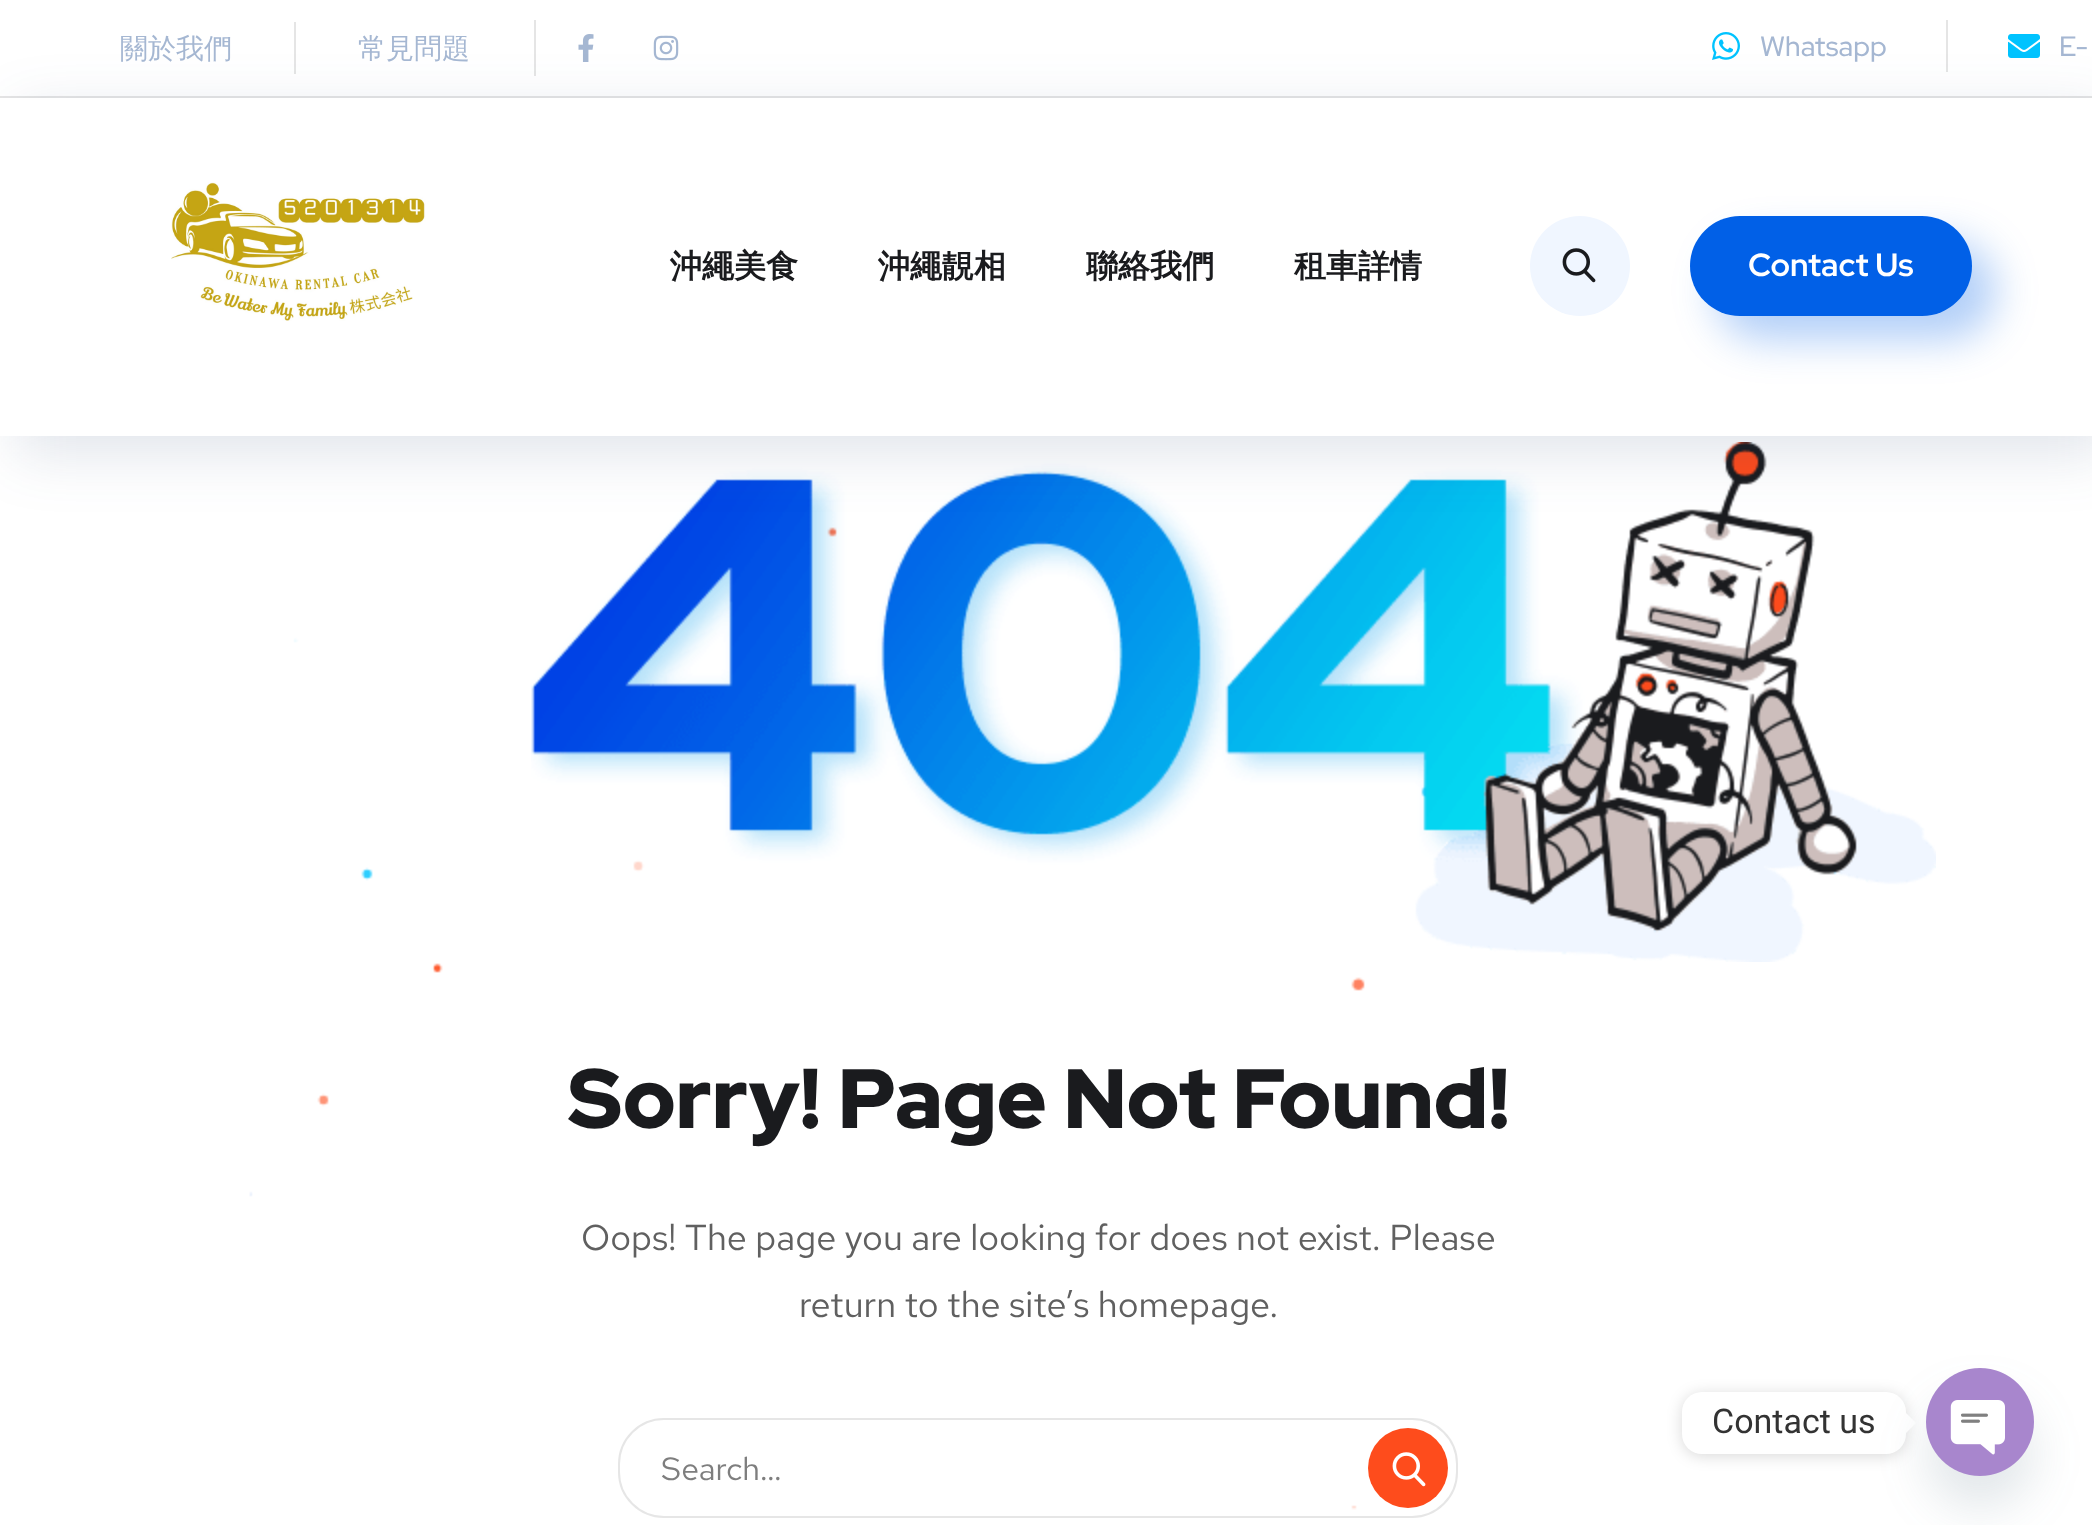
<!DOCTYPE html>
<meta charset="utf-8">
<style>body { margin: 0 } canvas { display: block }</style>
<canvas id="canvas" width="2092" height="1525"></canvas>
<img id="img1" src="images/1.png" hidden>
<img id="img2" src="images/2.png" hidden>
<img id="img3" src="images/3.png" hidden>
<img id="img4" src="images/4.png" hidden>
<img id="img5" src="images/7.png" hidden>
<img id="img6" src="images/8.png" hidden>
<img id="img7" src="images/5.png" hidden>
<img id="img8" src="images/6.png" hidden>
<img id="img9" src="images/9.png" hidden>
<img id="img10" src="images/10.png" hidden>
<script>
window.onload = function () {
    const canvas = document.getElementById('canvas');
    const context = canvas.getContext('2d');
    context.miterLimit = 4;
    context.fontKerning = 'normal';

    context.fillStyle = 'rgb(255, 255, 255)';
    context.fillRect(0, 0, 2092, 1525);
    context.fillStyle = 'rgb(229, 229, 229)';
    context.fillRect(0, 96, 2092, 2);
    context.fillRect(294, 22, 2, 52);
    context.fillRect(534, 20, 2, 56);
    context.drawImage(document.getElementById('img1'), 578, 34, 16, 28);
    context.drawImage(document.getElementById('img2'), 653, 35, 26, 26);
    context.drawImage(document.getElementById('img3'), 1712, 32, 28, 28);
    context.fillRect(1946, 20, 2, 52);
    context.drawImage(document.getElementById('img4'), 2008, 34, 32, 24);
    context.drawImage(document.getElementById('img5'), 249, 527, 1178, 983);
    context.drawImage(document.getElementById('img6'), 531, 442, 1405, 520);
    context.save();
    context.beginPath();
    context.moveTo(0, 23);
    context.lineTo(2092, 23);
    context.lineTo(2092, 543);
    context.lineTo(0, 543);
    context.closePath();
    context.moveTo(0, 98);
    context.lineTo(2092, 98);
    context.lineTo(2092, 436);
    context.lineTo(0, 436);
    context.closePath();
    context.clip('evenodd');
    context.fillStyle = 'rgba(42, 67, 113, 0.15)';
    context.filter = 'blur(30px)';
    context.beginPath();
    context.rect(16, 114, 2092, 338);
    context.fill();
    context.filter = 'none';
    context.restore();
    context.drawImage(document.getElementById('img7'), 171, 182, 255, 139);
    context.fillStyle = 'rgb(240, 246, 255)';
    context.beginPath();
    context.arc(1580, 266, 50, 0, 2 * Math.PI);
    context.fill();
    context.drawImage(document.getElementById('img8'), 1562, 248, 34, 35);
    context.fillStyle = 'rgba(1, 96, 231, 0.3)';
    context.filter = 'blur(20px)';
    context.beginPath();
    context.roundRect(1714, 240, 282, 100, 50);
    context.fill();
    context.filter = 'none';
    context.fillStyle = 'rgb(1, 96, 231)';
    context.beginPath();
    context.roundRect(1690, 216, 282, 100, 50);
    context.fill();
    context.beginPath();
    context.roundRect(619, 1419, 838, 98, 45);
    context.strokeStyle = 'rgb(230, 230, 230)';
    context.lineWidth = 2;
    context.stroke();
    context.fillStyle = 'rgb(254, 76, 28)';
    context.beginPath();
    context.arc(1408, 1468, 40, 0, 2 * Math.PI);
    context.fill();
    context.drawImage(document.getElementById('img9'), 1392, 1452, 34, 35);
    context.fillStyle = 'rgba(0, 0, 0, 0.15)';
    context.filter = 'blur(7.5px)';
    context.beginPath();
    context.roundRect(1682, 1394, 224, 62, 20);
    context.fill();
    context.filter = 'none';
    context.fillStyle = 'rgb(255, 255, 255)';
    context.beginPath();
    context.roundRect(1682, 1392, 224, 62, 20);
    context.fill();
    context.beginPath();
    context.moveTo(1906, 1433);
    context.lineTo(1906, 1413);
    context.lineTo(1916, 1423);
    context.closePath();
    context.fill();
    context.fillStyle = 'rgba(73, 104, 126, 0.16)';
    context.filter = 'blur(24px)';
    context.beginPath();
    context.roundRect(1926, 1400, 108, 108, 54);
    context.fill();
    context.filter = 'none';
    context.drawImage(document.getElementById('img10'), 1926, 1368, 108, 108);
    context.font = '500 28px WenQuanYi Zen Hei';
    context.fillStyle = 'rgb(165, 183, 210)';
    context.fillText('關於我們', 120, 58);
    context.fillText('常見問題', 358, 58);
    context.font = '500 28px Red Hat Display';
    context.fillText('Whatsapp', 1760, 56);
    context.fillText('E-', 2059, 56);
    context.font = 'bold 32px WenQuanYi Zen Hei';
    context.fillStyle = 'rgb(26, 27, 30)';
    context.fillText('沖繩美食', 670, 277);
    context.fillText('沖繩靚相', 878, 277);
    context.fillText('聯絡我們', 1086, 277);
    context.fillText('租車詳情', 1294, 277);
    context.font = 'bold 32px Red Hat Display';
    context.fillStyle = 'rgb(255, 255, 255)';
    context.fillText('Contact Us', 1748, 276);
    context.font = '900 84px Red Hat Display';
    context.fillStyle = 'rgb(26, 27, 30)';
    context.fillText('Sorry! Page Not Found!', 568, 1128);
    context.font = '36px Red Hat Text';
    context.fillStyle = 'rgb(96, 96, 96)';
    context.fillText('Oops! The page you are looking for does not exist. Please', 581, 1250);
    context.fillText('return to the site’s homepage.', 799, 1317);
    context.font = '32px Red Hat Text';
    context.fillStyle = 'rgb(126, 126, 126)';
    context.fillText('Search…', 661, 1480);
    context.font = '34px Roboto';
    context.fillStyle = 'rgb(51, 51, 51)';
    context.fillText('Contact us', 1712, 1433);
};
</script>
